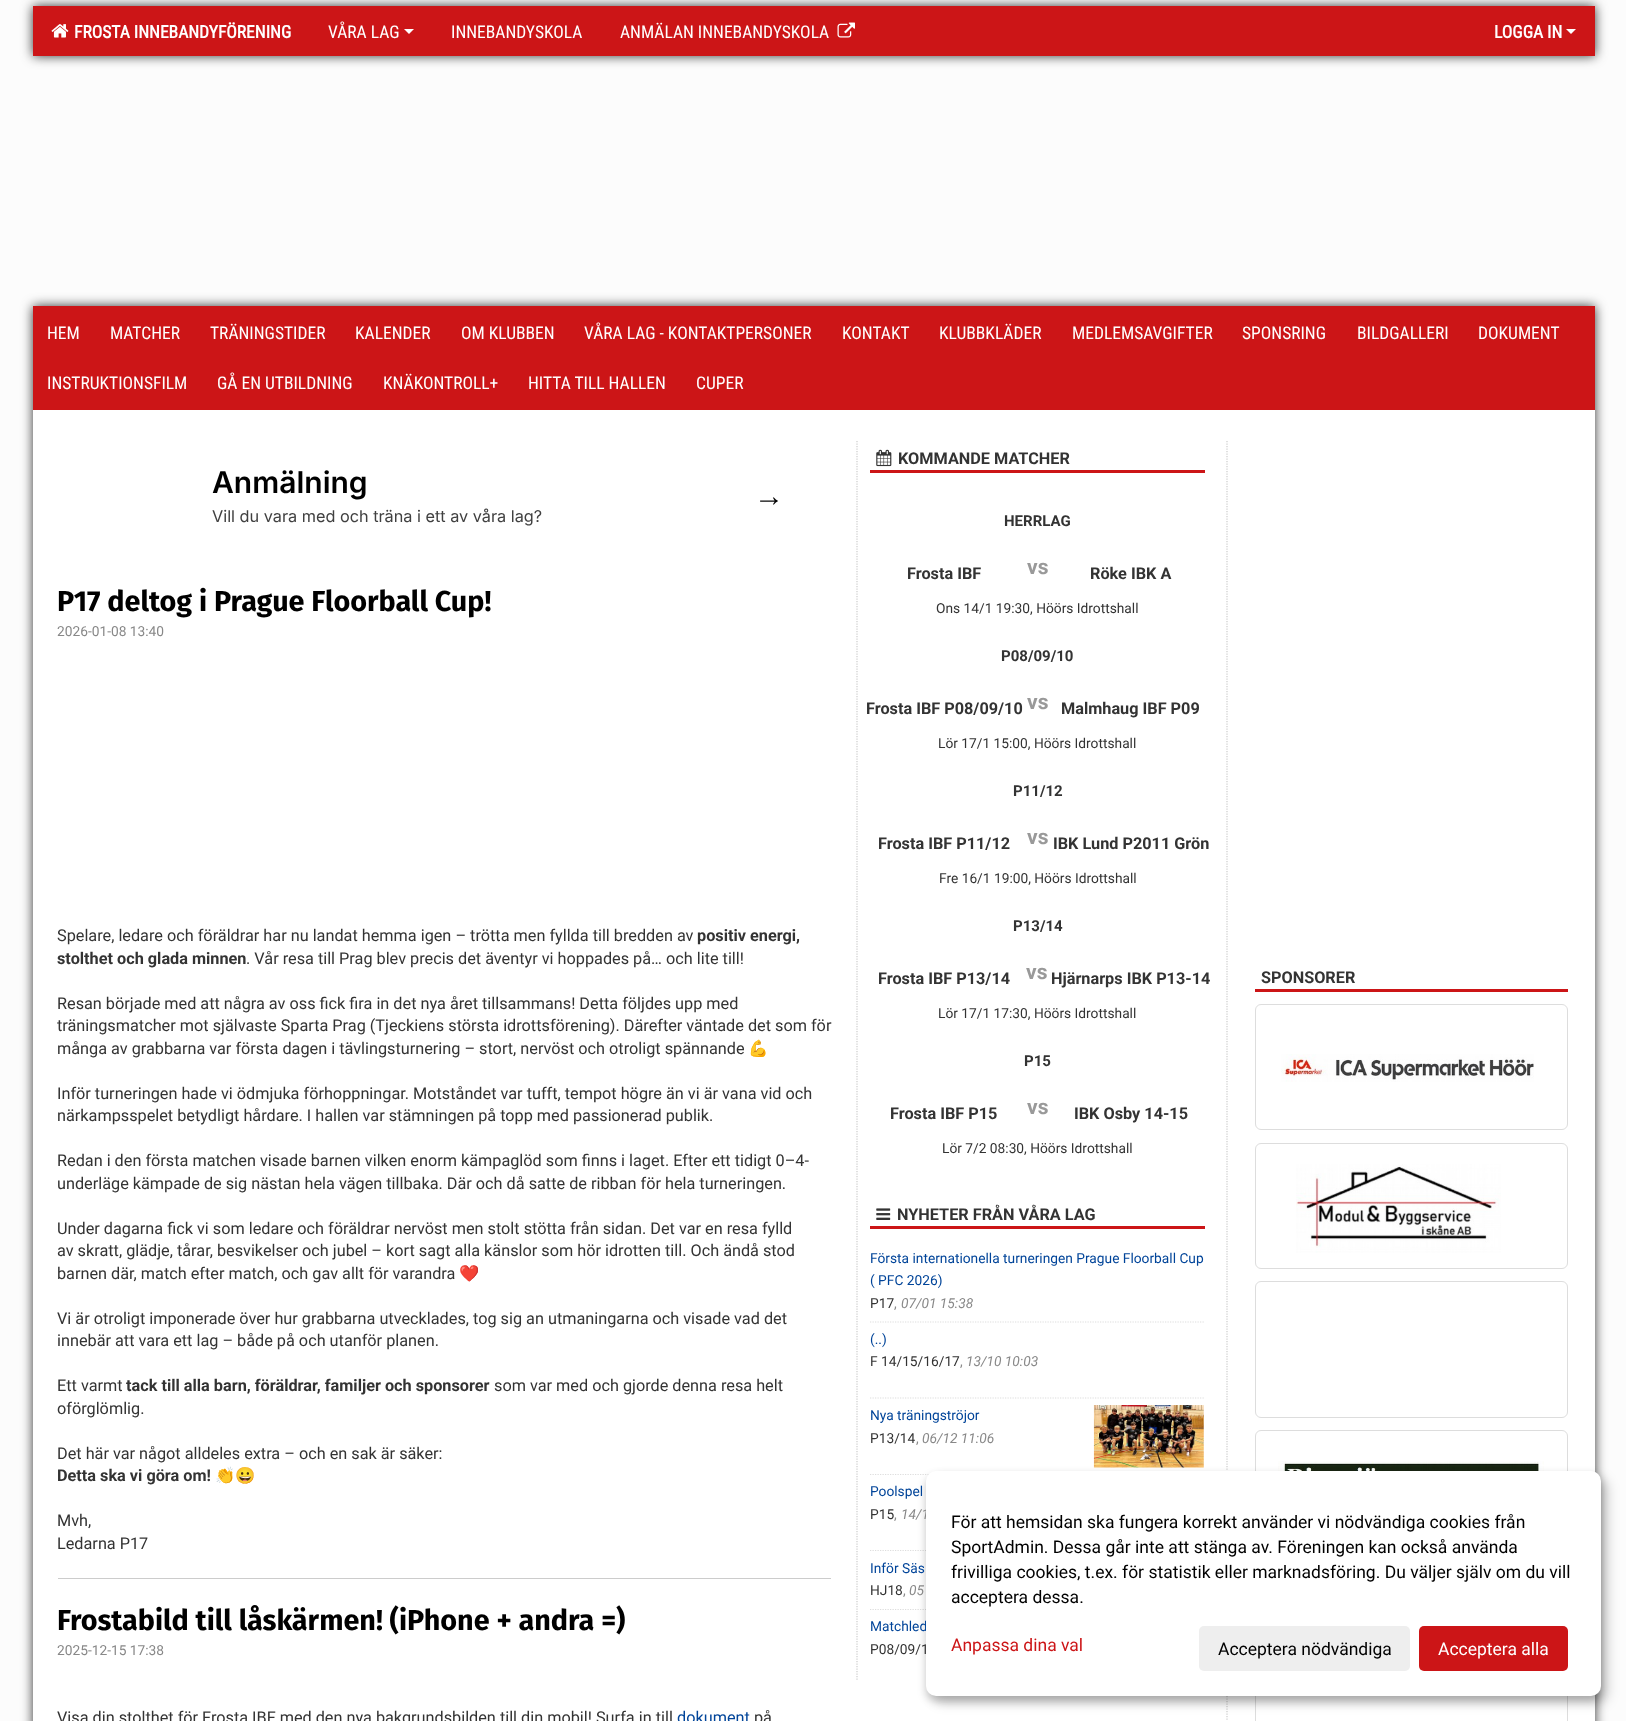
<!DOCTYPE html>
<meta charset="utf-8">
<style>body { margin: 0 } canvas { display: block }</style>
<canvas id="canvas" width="1626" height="1721"></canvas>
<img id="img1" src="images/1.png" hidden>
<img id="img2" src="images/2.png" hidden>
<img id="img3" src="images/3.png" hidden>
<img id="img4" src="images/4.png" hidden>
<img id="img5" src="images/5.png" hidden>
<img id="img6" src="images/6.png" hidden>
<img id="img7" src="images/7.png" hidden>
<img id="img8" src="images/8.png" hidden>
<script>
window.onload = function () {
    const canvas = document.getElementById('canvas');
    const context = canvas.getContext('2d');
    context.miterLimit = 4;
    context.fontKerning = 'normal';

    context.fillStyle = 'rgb(252, 252, 252)';
    context.fillRect(0, 0, 1626, 1721);
    context.fillStyle = 'rgb(51, 51, 51)';
    context.filter = 'blur(6px)';
    context.beginPath();
    context.rect(33, 6, 1562, 50);
    context.fill();
    context.filter = 'none';
    context.fillStyle = 'rgb(204, 21, 23)';
    context.fillRect(33, 6, 1562, 50);
    context.drawImage(document.getElementById('img1'), 51, 24, 18, 14);
    context.fillStyle = 'rgb(255, 255, 255)';
    context.beginPath();
    context.moveTo(404, 29);
    context.lineTo(414, 29);
    context.lineTo(409, 34);
    context.closePath();
    context.fill();
    context.drawImage(document.getElementById('img2'), 837, 22, 18, 16);
    context.beginPath();
    context.moveTo(1566, 29);
    context.lineTo(1576, 29);
    context.lineTo(1571, 34);
    context.closePath();
    context.fill();
    context.fillStyle = 'rgb(51, 51, 51)';
    context.filter = 'blur(6px)';
    context.beginPath();
    context.rect(33, 306, 1562, 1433);
    context.fill();
    context.filter = 'none';
    context.fillStyle = 'rgb(255, 255, 255)';
    context.fillRect(33, 410, 1562, 1311);
    context.fillStyle = 'rgb(204, 21, 23)';
    context.fillRect(33, 306, 1562, 104);
    context.fillStyle = 'rgb(204, 204, 204)';
    context.fillRect(58, 1578, 773, 1);
    context.beginPath();
    context.moveTo(857, 441);
    context.lineTo(857, 1680);
    context.strokeStyle = 'rgb(204, 204, 204)';
    context.lineWidth = 1.2;
    context.setLineDash([1.25, 1.25]);
    context.stroke();
    context.fillStyle = 'rgb(204, 21, 23)';
    context.fillRect(870, 470, 335, 3);
    context.drawImage(document.getElementById('img3'), 876, 449, 16, 18);
    context.fillRect(870, 1226, 335, 3);
    context.drawImage(document.getElementById('img4'), 876, 1208, 15, 12);
    context.beginPath();
    context.moveTo(870, 1322);
    context.lineTo(1205, 1322);
    context.strokeStyle = 'rgb(221, 221, 221)';
    context.stroke();
    context.beginPath();
    context.moveTo(870, 1398);
    context.lineTo(1205, 1398);
    context.stroke();
    context.drawImage(document.getElementById('img5'), 1093, 1405, 111, 63);
    context.beginPath();
    context.moveTo(870, 1474.5);
    context.lineTo(1205, 1474.5);
    context.stroke();
    context.beginPath();
    context.moveTo(870, 1550.5);
    context.lineTo(1205, 1550.5);
    context.stroke();
    context.beginPath();
    context.moveTo(870, 1609.5);
    context.lineTo(1205, 1609.5);
    context.stroke();
    context.beginPath();
    context.moveTo(1227, 441);
    context.lineTo(1227, 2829);
    context.strokeStyle = 'rgb(204, 204, 204)';
    context.stroke();
    context.fillRect(1255, 989, 313, 3);
    context.beginPath();
    context.roundRect(1255.5, 1004.5, 312, 125, 5.5);
    context.strokeStyle = 'rgb(221, 221, 221)';
    context.lineWidth = 1;
    context.setLineDash([]);
    context.stroke();
    context.drawImage(document.getElementById('img6'), 1281, 1054, 253, 28);
    context.beginPath();
    context.roundRect(1255.5, 1143.5, 312, 125, 5.5);
    context.stroke();
    context.drawImage(document.getElementById('img7'), 1296, 1164, 205, 89);
    context.beginPath();
    context.roundRect(1255.5, 1281.5, 312, 136, 5.5);
    context.stroke();
    context.beginPath();
    context.roundRect(1255.5, 1430.5, 312, 125, 5.5);
    context.stroke();
    context.drawImage(document.getElementById('img8'), 1278, 1461, 266, 10);
    context.strokeRect(1255.5, 1569.5, 312, 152);
    context.fillStyle = 'rgba(0, 0, 0, 0.19)';
    context.filter = 'blur(6px)';
    context.beginPath();
    context.roundRect(933, 1478, 675, 225, 10);
    context.fill();
    context.filter = 'none';
    context.fillStyle = 'rgba(0, 0, 0, 0.2)';
    context.filter = 'blur(4px)';
    context.beginPath();
    context.roundRect(926, 1476, 675, 225, 10);
    context.fill();
    context.filter = 'none';
    context.font = 'bold 17.5px Roboto Condensed';
    context.fillStyle = 'rgb(255, 255, 255)';
    context.fillText('FROSTA INNEBANDYFÖRENING', 74, 38);
    context.font = '17.5px Roboto Condensed';
    context.fillText('VÅRA LAG', 328, 38);
    context.fillText('INNEBANDYSKOLA', 451, 38);
    context.fillText('ANMÄLAN INNEBANDYSKOLA', 620, 38);
    context.font = 'bold 17.5px Roboto Condensed';
    context.fillText('LOGGA IN', 1494, 38);
    context.font = '17.5px Roboto Condensed';
    context.fillText('HEM', 47, 339);
    context.fillText('MATCHER', 110, 339);
    context.fillText('TRÄNINGSTIDER', 210, 339);
    context.fillText('KALENDER', 355, 339);
    context.fillText('OM KLUBBEN', 461, 339);
    context.fillText('VÅRA LAG - KONTAKTPERSONER', 584, 339);
    context.fillText('KONTAKT', 842, 339);
    context.fillText('KLUBBKLÄDER', 939, 339);
    context.fillText('MEDLEMSAVGIFTER', 1072, 339);
    context.fillText('SPONSRING', 1242, 339);
    context.fillText('BILDGALLERI', 1357, 339);
    context.fillText('DOKUMENT', 1478, 339);
    context.fillText('INSTRUKTIONSFILM', 47, 389);
    context.fillText('GÅ EN UTBILDNING', 217, 389);
    context.fillText('KNÄKONTROLL+', 383, 389);
    context.fillText('HITTA TILL HALLEN', 528, 389);
    context.fillText('CUPER', 696, 389);
    context.font = '600 30px Inter';
    context.fillStyle = 'rgb(0, 0, 0)';
    context.fillText('Anmälning', 212, 493);
    context.font = '16.25px Inter';
    context.fillStyle = 'rgb(64, 64, 64)';
    context.fillText('Vill du vara med och träna i ett av våra lag?', 212, 522);
    context.font = '30px Liberation Sans';
    context.fillStyle = 'rgb(0, 0, 0)';
    context.fillText('→', 754, 506);
    context.font = 'bold 28.75px Fira Sans';
    context.fillText('P17 deltog i Prague Floorball Cup!', 57, 611);
    context.font = '13.75px Roboto';
    context.fillStyle = 'rgb(136, 136, 136)';
    context.fillText('2026-01-08 13:40', 57, 636);
    context.font = '16.25px Roboto';
    context.fillStyle = 'rgb(51, 51, 51)';
    context.fillText('Spelare, ledare och föräldrar har nu landat hemma igen – trötta men fyllda till bredden av', 57, 941);
    context.font = 'bold 16.25px Roboto';
    context.fillText('positiv energi,', 697, 941);
    context.fillText('stolthet och glada minnen', 57, 964);
    context.font = '16.25px Roboto';
    context.fillText('. Vår resa till Prag blev precis det äventyr vi hoppades på… och lite till!', 246, 964);
    context.fillText('Resan började med att några av oss fick fira in det nya året tillsammans! Detta följdes upp med', 57, 1009);
    context.fillText('träningsmatcher mot självaste Sparta Prag (Tjeckiens största idrottsförening). Därefter väntade det som för', 57, 1031);
    context.fillText('många av grabbarna var första dagen i tävlingsturnering – stort, nervöst och otroligt spännande', 57, 1054);
    context.font = '16.25px Noto Color Emoji';
    context.fillText('💪', 748, 1054);
    context.font = '16.25px Roboto';
    context.fillText('Inför turneringen hade vi ödmjuka förhoppningar. Motståndet var tufft, tempot högre än vi är vana vid och', 57, 1099);
    context.fillText('närkampsspelet betydligt hårdare. I hallen var stämningen på topp med passionerad publik.', 57, 1121);
    context.fillText('Redan i den första matchen visade barnen vilken enorm kämpaglöd som finns i laget. Efter ett tidigt 0–4-', 57, 1166);
    context.fillText('underläge kämpade de sig nästan hela vägen tillbaka. Där och då satte de ribban för hela turneringen.', 57, 1189);
    context.fillText('Under dagarna fick vi som ledare och föräldrar nervöst men stolt stötta från sidan. Det var en resa fylld', 57, 1234);
    context.fillText('av skratt, glädje, tårar, besvikelser och jubel – kort sagt alla känslor som hör idrotten till. Och ändå stod', 57, 1256);
    context.fillText('barnen där, match efter match, och gav allt för varandra', 57, 1279);
    context.font = '16.25px Noto Color Emoji';
    context.fillText('❤️', 459, 1279);
    context.font = '16.25px Roboto';
    context.fillText('Vi är otroligt imponerade över hur grabbarna utvecklades, tog sig an utmaningarna och visade vad det', 57, 1324);
    context.fillText('innebär att vara ett lag – både på och utanför planen.', 57, 1346);
    context.fillText('Ett varmt', 57, 1391);
    context.font = 'bold 16.25px Roboto';
    context.fillText('tack till alla barn, föräldrar, familjer och sponsorer', 126, 1391);
    context.font = '16.25px Roboto';
    context.fillText('som var med och gjorde denna resa helt', 494, 1391);
    context.fillText('oförglömlig.', 57, 1414);
    context.fillText('Det här var något alldeles extra – och en sak är säker:', 57, 1459);
    context.font = 'bold 16.25px Roboto';
    context.fillText('Detta ska vi göra om!', 57, 1481);
    context.font = '16.25px Noto Color Emoji';
    context.fillText('👏😀', 215, 1481);
    context.font = '16.25px Roboto';
    context.fillText('Mvh,', 57, 1526);
    context.fillText('Ledarna P17', 57, 1549);
    context.font = 'bold 28.75px Fira Sans';
    context.fillStyle = 'rgb(0, 0, 0)';
    context.fillText('Frostabild till låskärmen! (iPhone + andra =)', 57, 1630);
    context.font = '13.75px Roboto';
    context.fillStyle = 'rgb(136, 136, 136)';
    context.fillText('2025-12-15 17:38', 57, 1655);
    context.font = '16.25px Roboto';
    context.fillStyle = 'rgb(51, 51, 51)';
    context.fillText('Visa din stolthet för Frosta IBF med den nya bakgrundsbilden till din mobil! Surfa in till', 57, 1723);
    context.fillStyle = 'rgb(0, 68, 153)';
    context.fillText('dokument', 677, 1723);
    context.fillStyle = 'rgb(51, 51, 51)';
    context.fillText('på', 754, 1723);
    context.font = 'bold 16.25px Roboto';
    context.fillText('KOMMANDE MATCHER', 898, 464);
    context.font = 'bold 15px Roboto';
    context.fillText('HERRLAG', 1004, 526);
    context.font = 'bold 16.25px Roboto';
    context.fillText('Frosta IBF', 907, 579);
    context.font = 'bold 21px Roboto';
    context.fillStyle = 'rgb(153, 153, 153)';
    context.fillText('vs', 1027, 574);
    context.font = 'bold 16.25px Roboto';
    context.fillStyle = 'rgb(51, 51, 51)';
    context.fillText('Röke IBK A', 1090, 579);
    context.font = '13.75px Roboto';
    context.fillText('Ons 14/1 19:30, Höörs Idrottshall', 936, 613);
    context.font = 'bold 15px Roboto';
    context.fillText('P08/09/10', 1001, 661);
    context.font = 'bold 16.25px Roboto';
    context.fillText('Frosta IBF P08/09/10', 866, 714);
    context.font = 'bold 21px Roboto';
    context.fillStyle = 'rgb(153, 153, 153)';
    context.fillText('vs', 1027, 709);
    context.font = 'bold 16.25px Roboto';
    context.fillStyle = 'rgb(51, 51, 51)';
    context.fillText('Malmhaug IBF P09', 1061, 714);
    context.font = '13.75px Roboto';
    context.fillText('Lör 17/1 15:00, Höörs Idrottshall', 938, 748);
    context.font = 'bold 15px Roboto';
    context.fillText('P11/12', 1013, 796);
    context.font = 'bold 16.25px Roboto';
    context.fillText('Frosta IBF P11/12', 878, 849);
    context.font = 'bold 21px Roboto';
    context.fillStyle = 'rgb(153, 153, 153)';
    context.fillText('vs', 1027, 844);
    context.font = 'bold 16.25px Roboto';
    context.fillStyle = 'rgb(51, 51, 51)';
    context.fillText('IBK Lund P2011 Grön', 1053, 849);
    context.font = '13.75px Roboto';
    context.fillText('Fre 16/1 19:00, Höörs Idrottshall', 939, 883);
    context.font = 'bold 15px Roboto';
    context.fillText('P13/14', 1013, 931);
    context.font = 'bold 16.25px Roboto';
    context.fillText('Frosta IBF P13/14', 878, 984);
    context.font = 'bold 21px Roboto';
    context.fillStyle = 'rgb(153, 153, 153)';
    context.fillText('vs', 1026, 979);
    context.font = 'bold 16.25px Roboto';
    context.fillStyle = 'rgb(51, 51, 51)';
    context.fillText('Hjärnarps IBK P13-14', 1051, 984);
    context.font = '13.75px Roboto';
    context.fillText('Lör 17/1 17:30, Höörs Idrottshall', 938, 1018);
    context.font = 'bold 15px Roboto';
    context.fillText('P15', 1024, 1066);
    context.font = 'bold 16.25px Roboto';
    context.fillText('Frosta IBF P15', 890, 1119);
    context.font = 'bold 21px Roboto';
    context.fillStyle = 'rgb(153, 153, 153)';
    context.fillText('vs', 1027, 1114);
    context.font = 'bold 16.25px Roboto';
    context.fillStyle = 'rgb(51, 51, 51)';
    context.fillText('IBK Osby 14-15', 1074, 1119);
    context.font = '13.75px Roboto';
    context.fillText('Lör 7/2 08:30, Höörs Idrottshall', 942, 1153);
    context.font = 'bold 16.25px Roboto';
    context.fillText('NYHETER FRÅN VÅRA LAG', 897, 1220);
    context.font = '13.75px Roboto';
    context.fillStyle = 'rgb(0, 68, 153)';
    context.fillText('Första internationella turneringen Prague Floorball Cup', 870, 1263);
    context.fillText('( PFC 2026)', 870, 1285);
    context.fillStyle = 'rgb(51, 51, 51)';
    context.fillText('P17', 870, 1308);
    context.fillStyle = 'rgb(136, 136, 136)';
    context.fillText(',', 894, 1308);
    context.font = 'italic 13.75px Roboto';
    context.fillText('07/01 15:38', 901, 1308);
    context.font = '13.75px Roboto';
    context.fillStyle = 'rgb(0, 68, 153)';
    context.fillText('(..)', 870, 1344);
    context.fillStyle = 'rgb(51, 51, 51)';
    context.fillText('F 14/15/16/17', 870, 1366);
    context.fillStyle = 'rgb(136, 136, 136)';
    context.fillText(',', 960, 1366);
    context.font = 'italic 13.75px Roboto';
    context.fillText('13/10 10:03', 966, 1366);
    context.font = '13.75px Roboto';
    context.fillStyle = 'rgb(0, 68, 153)';
    context.fillText('Nya träningströjor', 870, 1420);
    context.fillStyle = 'rgb(51, 51, 51)';
    context.fillText('P13/14', 870, 1443);
    context.fillStyle = 'rgb(136, 136, 136)';
    context.fillText(',', 916, 1443);
    context.font = 'italic 13.75px Roboto';
    context.fillText('06/12 11:06', 922, 1443);
    context.font = '13.75px Roboto';
    context.fillStyle = 'rgb(0, 68, 153)';
    context.fillText('Poolspel', 870, 1496);
    context.fillStyle = 'rgb(51, 51, 51)';
    context.fillText('P15', 870, 1519);
    context.fillStyle = 'rgb(136, 136, 136)';
    context.fillText(',', 894, 1519);
    context.font = 'italic 13.75px Roboto';
    context.fillText('14/1', 901, 1519);
    context.font = '13.75px Roboto';
    context.fillStyle = 'rgb(0, 68, 153)';
    context.fillText('Inför Säs', 870, 1573);
    context.fillStyle = 'rgb(51, 51, 51)';
    context.fillText('HJ18', 870, 1595);
    context.fillStyle = 'rgb(136, 136, 136)';
    context.fillText(',', 903, 1595);
    context.font = 'italic 13.75px Roboto';
    context.fillText('05', 909, 1595);
    context.font = '13.75px Roboto';
    context.fillStyle = 'rgb(0, 68, 153)';
    context.fillText('Matchled', 870, 1631);
    context.fillStyle = 'rgb(51, 51, 51)';
    context.fillText('P08/09/1', 870, 1654);
    context.font = 'bold 16.25px Roboto';
    context.fillText('SPONSORER', 1261, 983);
    context.fillStyle = 'rgb(255, 255, 255)';
    context.beginPath();
    context.roundRect(926, 1471, 675, 225, 10);
    context.fill();
    context.font = '17.5px Roboto';
    context.fillStyle = 'rgb(0, 0, 0)';
    context.fillText('För att hemsidan ska fungera korrekt använder vi nödvändiga cookies från', 951, 1528);
    context.fillText('SportAdmin. Dessa går inte att stänga av. Föreningen kan också använda', 951, 1553);
    context.fillText('frivilliga cookies, t.ex. för statistik eller marknadsföring. Du väljer själv om du vill', 951, 1578);
    context.fillText('acceptera dessa.', 951, 1603);
    context.fillStyle = 'rgb(204, 21, 23)';
    context.fillText('Anpassa dina val', 951, 1651);
    context.fillStyle = 'rgb(238, 238, 238)';
    context.beginPath();
    context.roundRect(1199, 1626, 211, 45, 5);
    context.fill();
    context.fillStyle = 'rgb(0, 0, 0)';
    context.fillText('Acceptera nödvändiga', 1218, 1655);
    context.fillStyle = 'rgb(204, 21, 23)';
    context.beginPath();
    context.roundRect(1419, 1626, 149, 45, 5);
    context.fill();
    context.fillStyle = 'rgb(255, 255, 255)';
    context.fillText('Acceptera alla', 1438, 1655);
};
</script>
